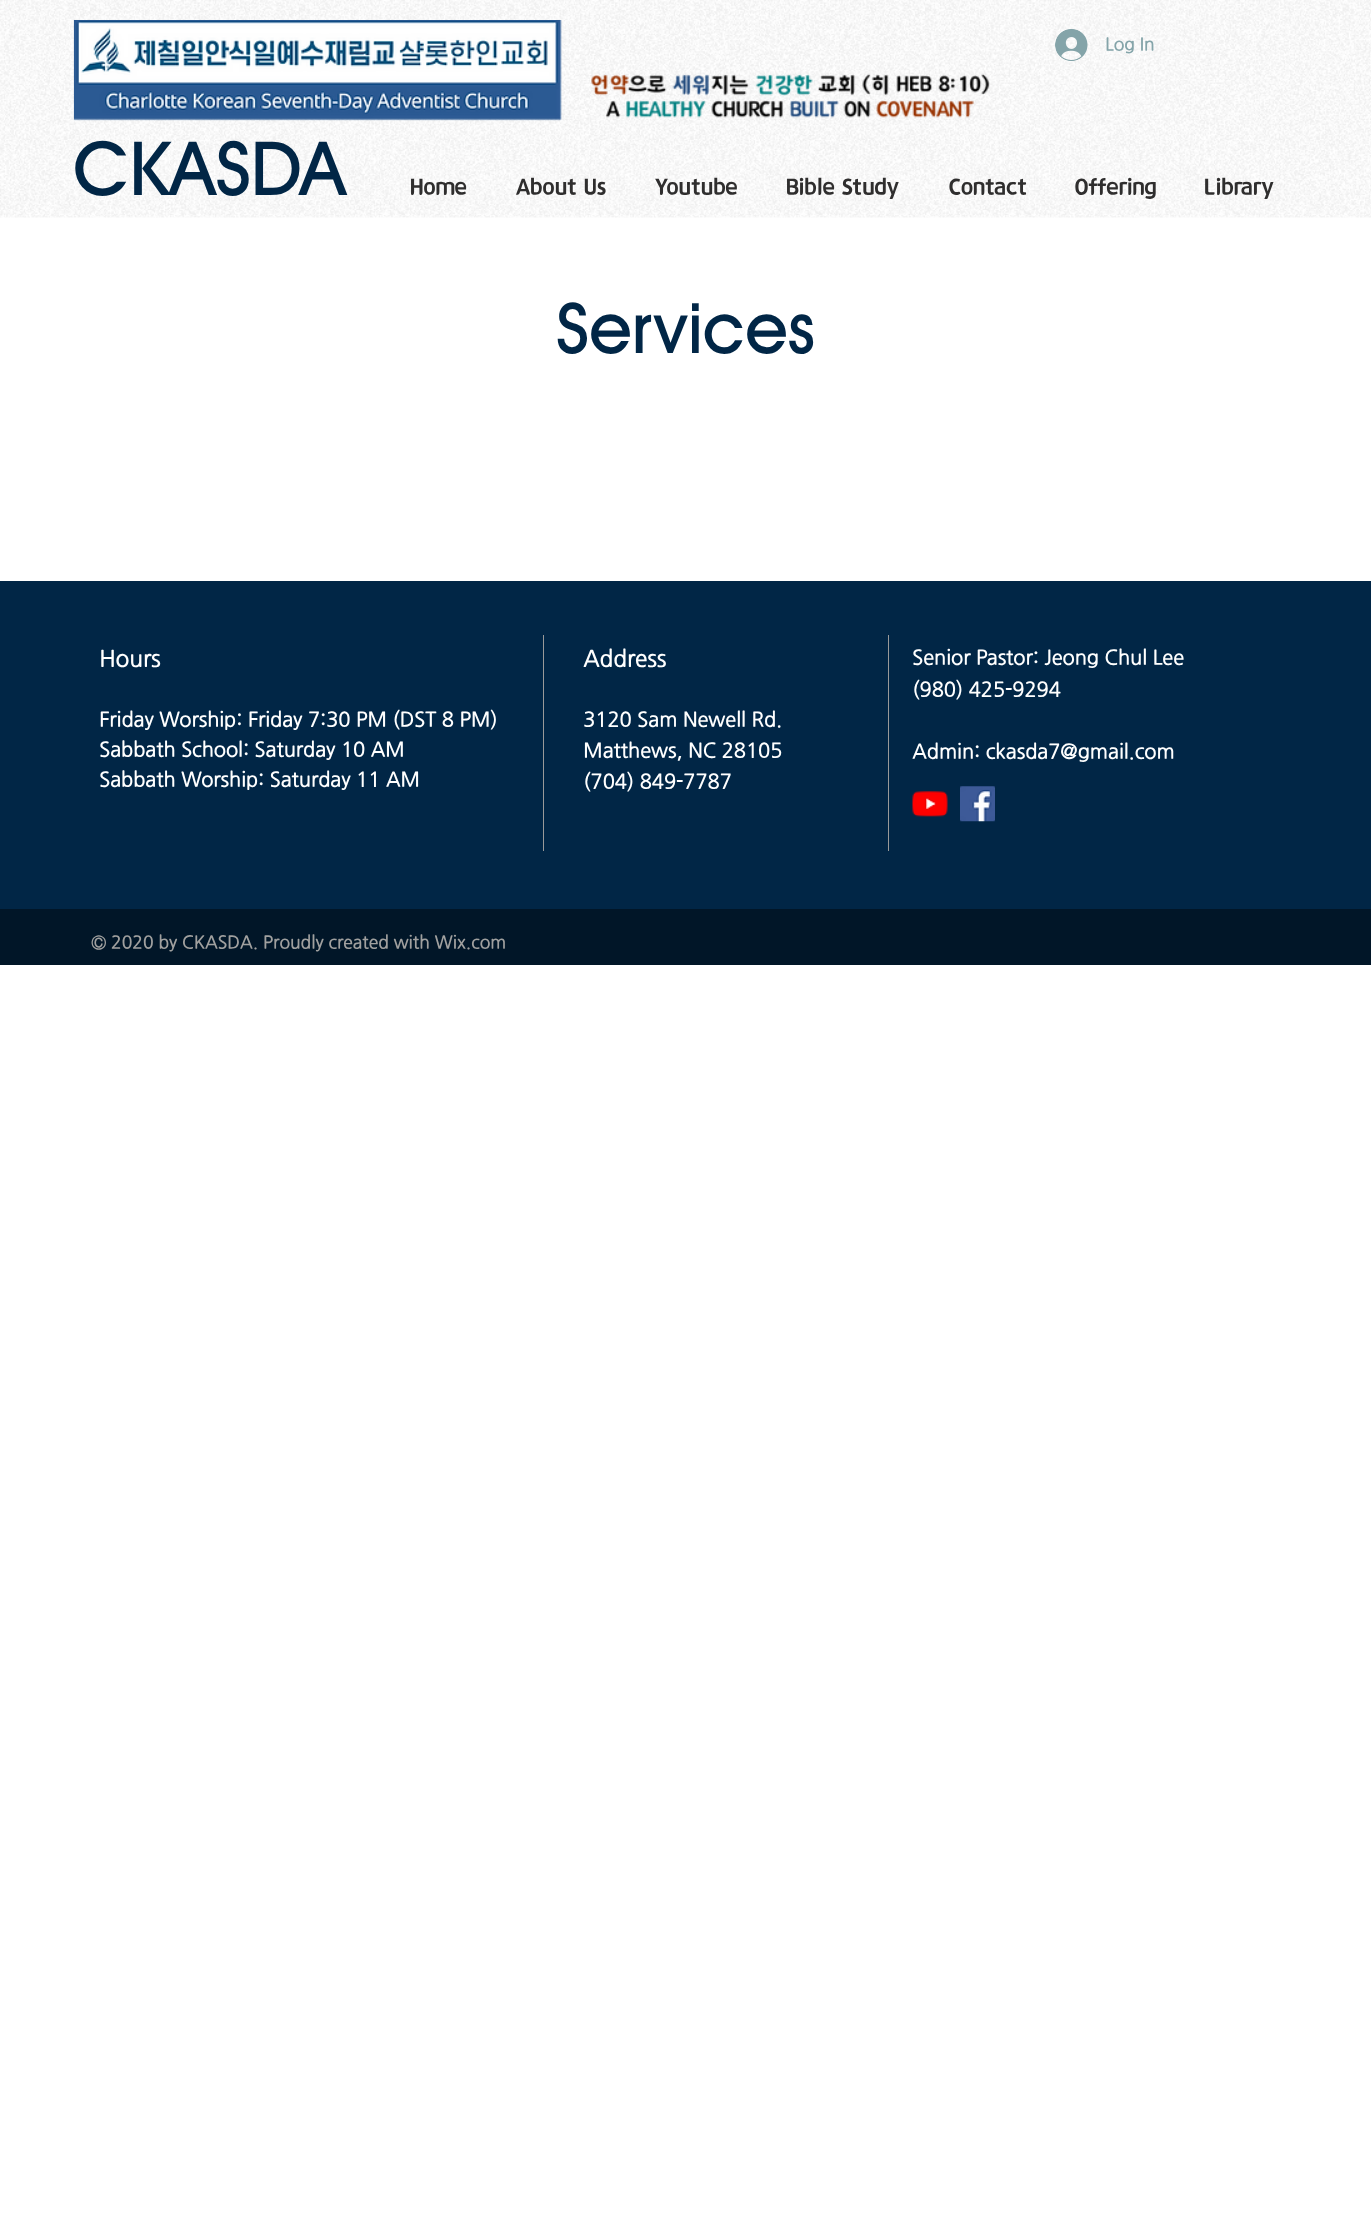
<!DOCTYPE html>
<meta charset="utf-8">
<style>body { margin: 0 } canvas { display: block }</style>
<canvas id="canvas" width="1371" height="2234"></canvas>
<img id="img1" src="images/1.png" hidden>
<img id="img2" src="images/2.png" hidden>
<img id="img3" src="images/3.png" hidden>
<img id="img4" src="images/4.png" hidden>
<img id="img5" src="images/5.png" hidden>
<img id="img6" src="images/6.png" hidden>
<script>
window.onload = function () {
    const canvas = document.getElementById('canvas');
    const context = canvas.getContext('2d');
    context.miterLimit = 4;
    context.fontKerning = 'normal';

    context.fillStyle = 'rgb(255, 255, 255)';
    context.fillRect(0, 0, 1371, 2234);
    context.drawImage(document.getElementById('img1'), 0, 0, 1371, 218);
    context.drawImage(document.getElementById('img2'), 73, 20, 489, 101);
    context.drawImage(document.getElementById('img3'), 1055, 29, 33, 32);
    context.drawImage(document.getElementById('img4'), 591, 73, 399, 45);
    context.fillStyle = 'rgb(1, 38, 70)';
    context.fillRect(0, 581, 1371, 328);
    context.fillStyle = 'rgb(153, 153, 153)';
    context.fillRect(543, 635, 1, 216);
    context.fillRect(888, 635, 1, 216);
    context.drawImage(document.getElementById('img5'), 912, 791, 36, 26);
    context.drawImage(document.getElementById('img6'), 960, 786, 35, 36);
    context.fillStyle = 'rgb(1, 22, 40)';
    context.fillRect(0, 909, 1371, 56);
    context.font = 'bold 17.5px NanumGothic';
    context.fillStyle = 'rgb(132, 164, 169)';
    context.fillText('Log In', 1105, 50);
    context.font = '500 75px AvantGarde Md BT';
    context.fillStyle = 'rgb(1, 38, 70)';
    context.fillText('CKASDA', 73, 195);
    context.font = 'bold 22.5px "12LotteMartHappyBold"';
    context.fillStyle = 'rgb(47, 46, 46)';
    context.fillText('Home', 410, 196);
    context.fillText('About Us', 516, 196);
    context.fillText('Youtube', 655, 196);
    context.fillText('Bible Study', 786, 196);
    context.fillText('Contact', 949, 196);
    context.fillText('Offering', 1075, 196);
    context.fillText('Library', 1204, 196);
    context.font = '500 70px AvantGarde Md BT';
    context.fillStyle = 'rgb(1, 38, 70)';
    context.fillText('Services', 556, 353);
    context.font = 'bold 22.5px NanumGothic';
    context.fillStyle = 'rgb(255, 255, 255)';
    context.fillText('Hours', 99, 666);
    context.font = 'bold 20px NanumGothic';
    context.fillText('Friday Worship: Friday 7:30 PM (DST 8 PM)', 99, 726);
    context.fillText('Sabbath School: Saturday 10 AM', 99, 756);
    context.fillText('Sabbath Worship: Saturday 11 AM', 99, 786);
    context.font = 'bold 22.5px NanumGothic';
    context.fillText('Address', 583, 666);
    context.font = 'bold 20px NanumGothic';
    context.fillText('3120 Sam Newell Rd.', 583, 726);
    context.fillText('Matthews, NC 28105', 583, 757);
    context.fillText('(704) 849-7787', 583, 788);
    context.fillText('Senior Pastor: Jeong Chul Lee', 912, 664);
    context.fillText('(980) 425-9294', 912, 696);
    context.fillText('Admin: ckasda7@gmail.com', 912, 758);
    context.font = 'bold 17.5px NanumGothic';
    context.fillStyle = 'rgb(160, 160, 159)';
    context.fillText('© 2020 by CKASDA. Proudly created with Wix.com', 91, 948);
};
</script>
